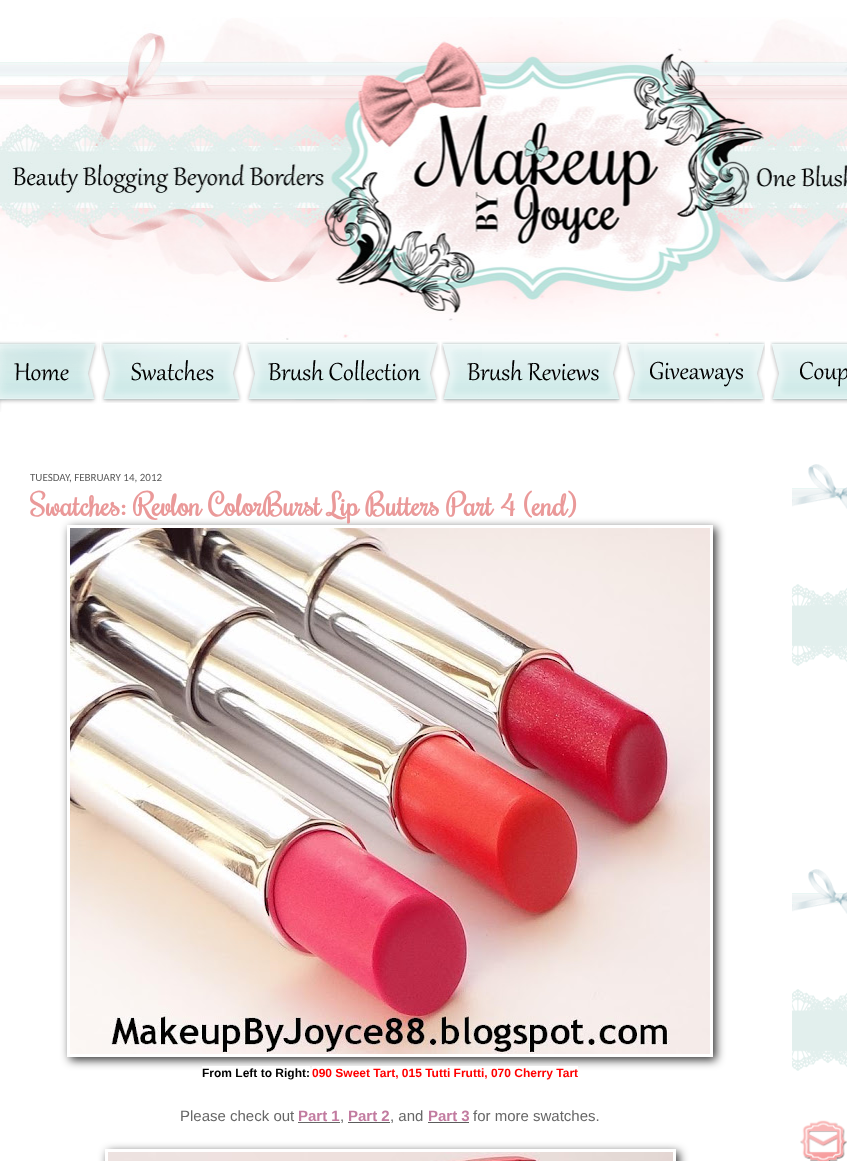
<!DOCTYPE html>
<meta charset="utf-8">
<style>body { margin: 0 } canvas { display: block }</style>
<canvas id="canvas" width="847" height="1161"></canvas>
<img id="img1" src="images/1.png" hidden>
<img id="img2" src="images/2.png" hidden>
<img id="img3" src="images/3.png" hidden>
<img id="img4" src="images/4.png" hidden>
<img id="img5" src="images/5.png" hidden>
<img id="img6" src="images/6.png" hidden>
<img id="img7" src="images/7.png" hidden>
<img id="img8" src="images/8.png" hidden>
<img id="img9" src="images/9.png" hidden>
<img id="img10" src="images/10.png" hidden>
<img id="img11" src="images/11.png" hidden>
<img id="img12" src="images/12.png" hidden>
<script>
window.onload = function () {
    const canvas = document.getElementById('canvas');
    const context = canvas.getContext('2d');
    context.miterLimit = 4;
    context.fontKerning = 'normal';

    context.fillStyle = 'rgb(255, 255, 255)';
    context.fillRect(0, 0, 847, 1161);
    context.drawImage(document.getElementById('img1'), 0, 17, 847, 323);
    context.drawImage(document.getElementById('img2'), 0, 341, 100, 71);
    context.drawImage(document.getElementById('img3'), 101, 341, 142, 62);
    context.drawImage(document.getElementById('img4'), 245, 341, 195, 63);
    context.drawImage(document.getElementById('img5'), 441, 341, 184, 63);
    context.drawImage(document.getElementById('img6'), 625, 341, 140, 63);
    context.drawImage(document.getElementById('img7'), 770, 341, 77, 63);
    context.save();
    context.beginPath();
    context.moveTo(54, 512);
    context.lineTo(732, 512);
    context.lineTo(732, 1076);
    context.lineTo(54, 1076);
    context.closePath();
    context.moveTo(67, 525);
    context.lineTo(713, 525);
    context.lineTo(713, 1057);
    context.lineTo(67, 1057);
    context.closePath();
    context.clip('evenodd');
    context.fillStyle = 'rgba(0, 0, 0, 0.8)';
    context.filter = 'blur(5px)';
    context.beginPath();
    context.rect(70, 528, 646, 532);
    context.fill();
    context.filter = 'none';
    context.restore();
    context.drawImage(document.getElementById('img8'), 70, 528, 640, 526);
    context.fillRect(202, 1066, 108, 5);
    context.fillRect(310, 1069, 2, 10);
    context.fillRect(312, 1066, 266, 5);
    context.fillStyle = 'rgb(102, 102, 102)';
    context.fillRect(298, 1122, 42, 1);
    context.fillStyle = 'rgb(92, 92, 92)';
    context.fillRect(348, 1122, 42, 1);
    context.fillRect(428, 1122, 41, 1);
    context.save();
    context.beginPath();
    context.moveTo(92, 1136);
    context.lineTo(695, 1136);
    context.lineTo(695, 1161);
    context.lineTo(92, 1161);
    context.closePath();
    context.moveTo(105, 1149);
    context.lineTo(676, 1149);
    context.lineTo(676, 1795);
    context.lineTo(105, 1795);
    context.closePath();
    context.clip('evenodd');
    context.fillStyle = 'rgba(0, 0, 0, 0.8)';
    context.filter = 'blur(5px)';
    context.beginPath();
    context.rect(108, 1152, 571, 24);
    context.fill();
    context.filter = 'none';
    context.restore();
    context.drawImage(document.getElementById('img9'), 108, 1152, 565, 9);
    context.drawImage(document.getElementById('img10'), 792, 464, 55, 45);
    context.drawImage(document.getElementById('img10'), 792, 869, 55, 45);
    context.drawImage(document.getElementById('img11'), 792, 584, 55, 82);
    context.drawImage(document.getElementById('img11'), 792, 989, 55, 82);
    context.drawImage(document.getElementById('img12'), 800, 1120, 47, 41);
    context.font = '11px Carlito';
    context.fillText('TUESDAY, FEBRUARY 14, 2012', 30, 481);
    context.font = 'bold 30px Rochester';
    context.fillStyle = 'rgb(234, 153, 153)';
    context.fillText('Swatches: Revlon ColorBurst Lip Butters Part 4 (end)', 30, 516);
    context.font = 'bold 12px Liberation Sans';
    context.fillStyle = 'rgb(0, 0, 0)';
    context.fillText('From Left to Right:', 202, 1077);
    context.fillStyle = 'rgb(255, 0, 0)';
    context.fillText('090 Sweet Tart, 015 Tutti Frutti, 070 Cherry Tart', 312, 1077);
    context.font = '15px Liberation Sans';
    context.fillStyle = 'rgb(102, 102, 102)';
    context.fillText('Please check out', 180, 1121);
    context.font = 'bold 15px Liberation Sans';
    context.fillStyle = 'rgb(194, 123, 160)';
    context.fillText('Part 1', 298, 1121);
    context.font = '15px Liberation Sans';
    context.fillStyle = 'rgb(102, 102, 102)';
    context.fillText(',', 340, 1121);
    context.font = 'bold 15px Liberation Sans';
    context.fillStyle = 'rgb(194, 123, 160)';
    context.fillText('Part 2', 348, 1121);
    context.font = '15px Liberation Sans';
    context.fillStyle = 'rgb(102, 102, 102)';
    context.fillText(', and', 390, 1121);
    context.font = 'bold 15px Liberation Sans';
    context.fillStyle = 'rgb(194, 123, 160)';
    context.fillText('Part 3', 428, 1121);
    context.font = '15px Liberation Sans';
    context.fillStyle = 'rgb(102, 102, 102)';
    context.fillText('for more swatches.', 473, 1121);
};
</script>
